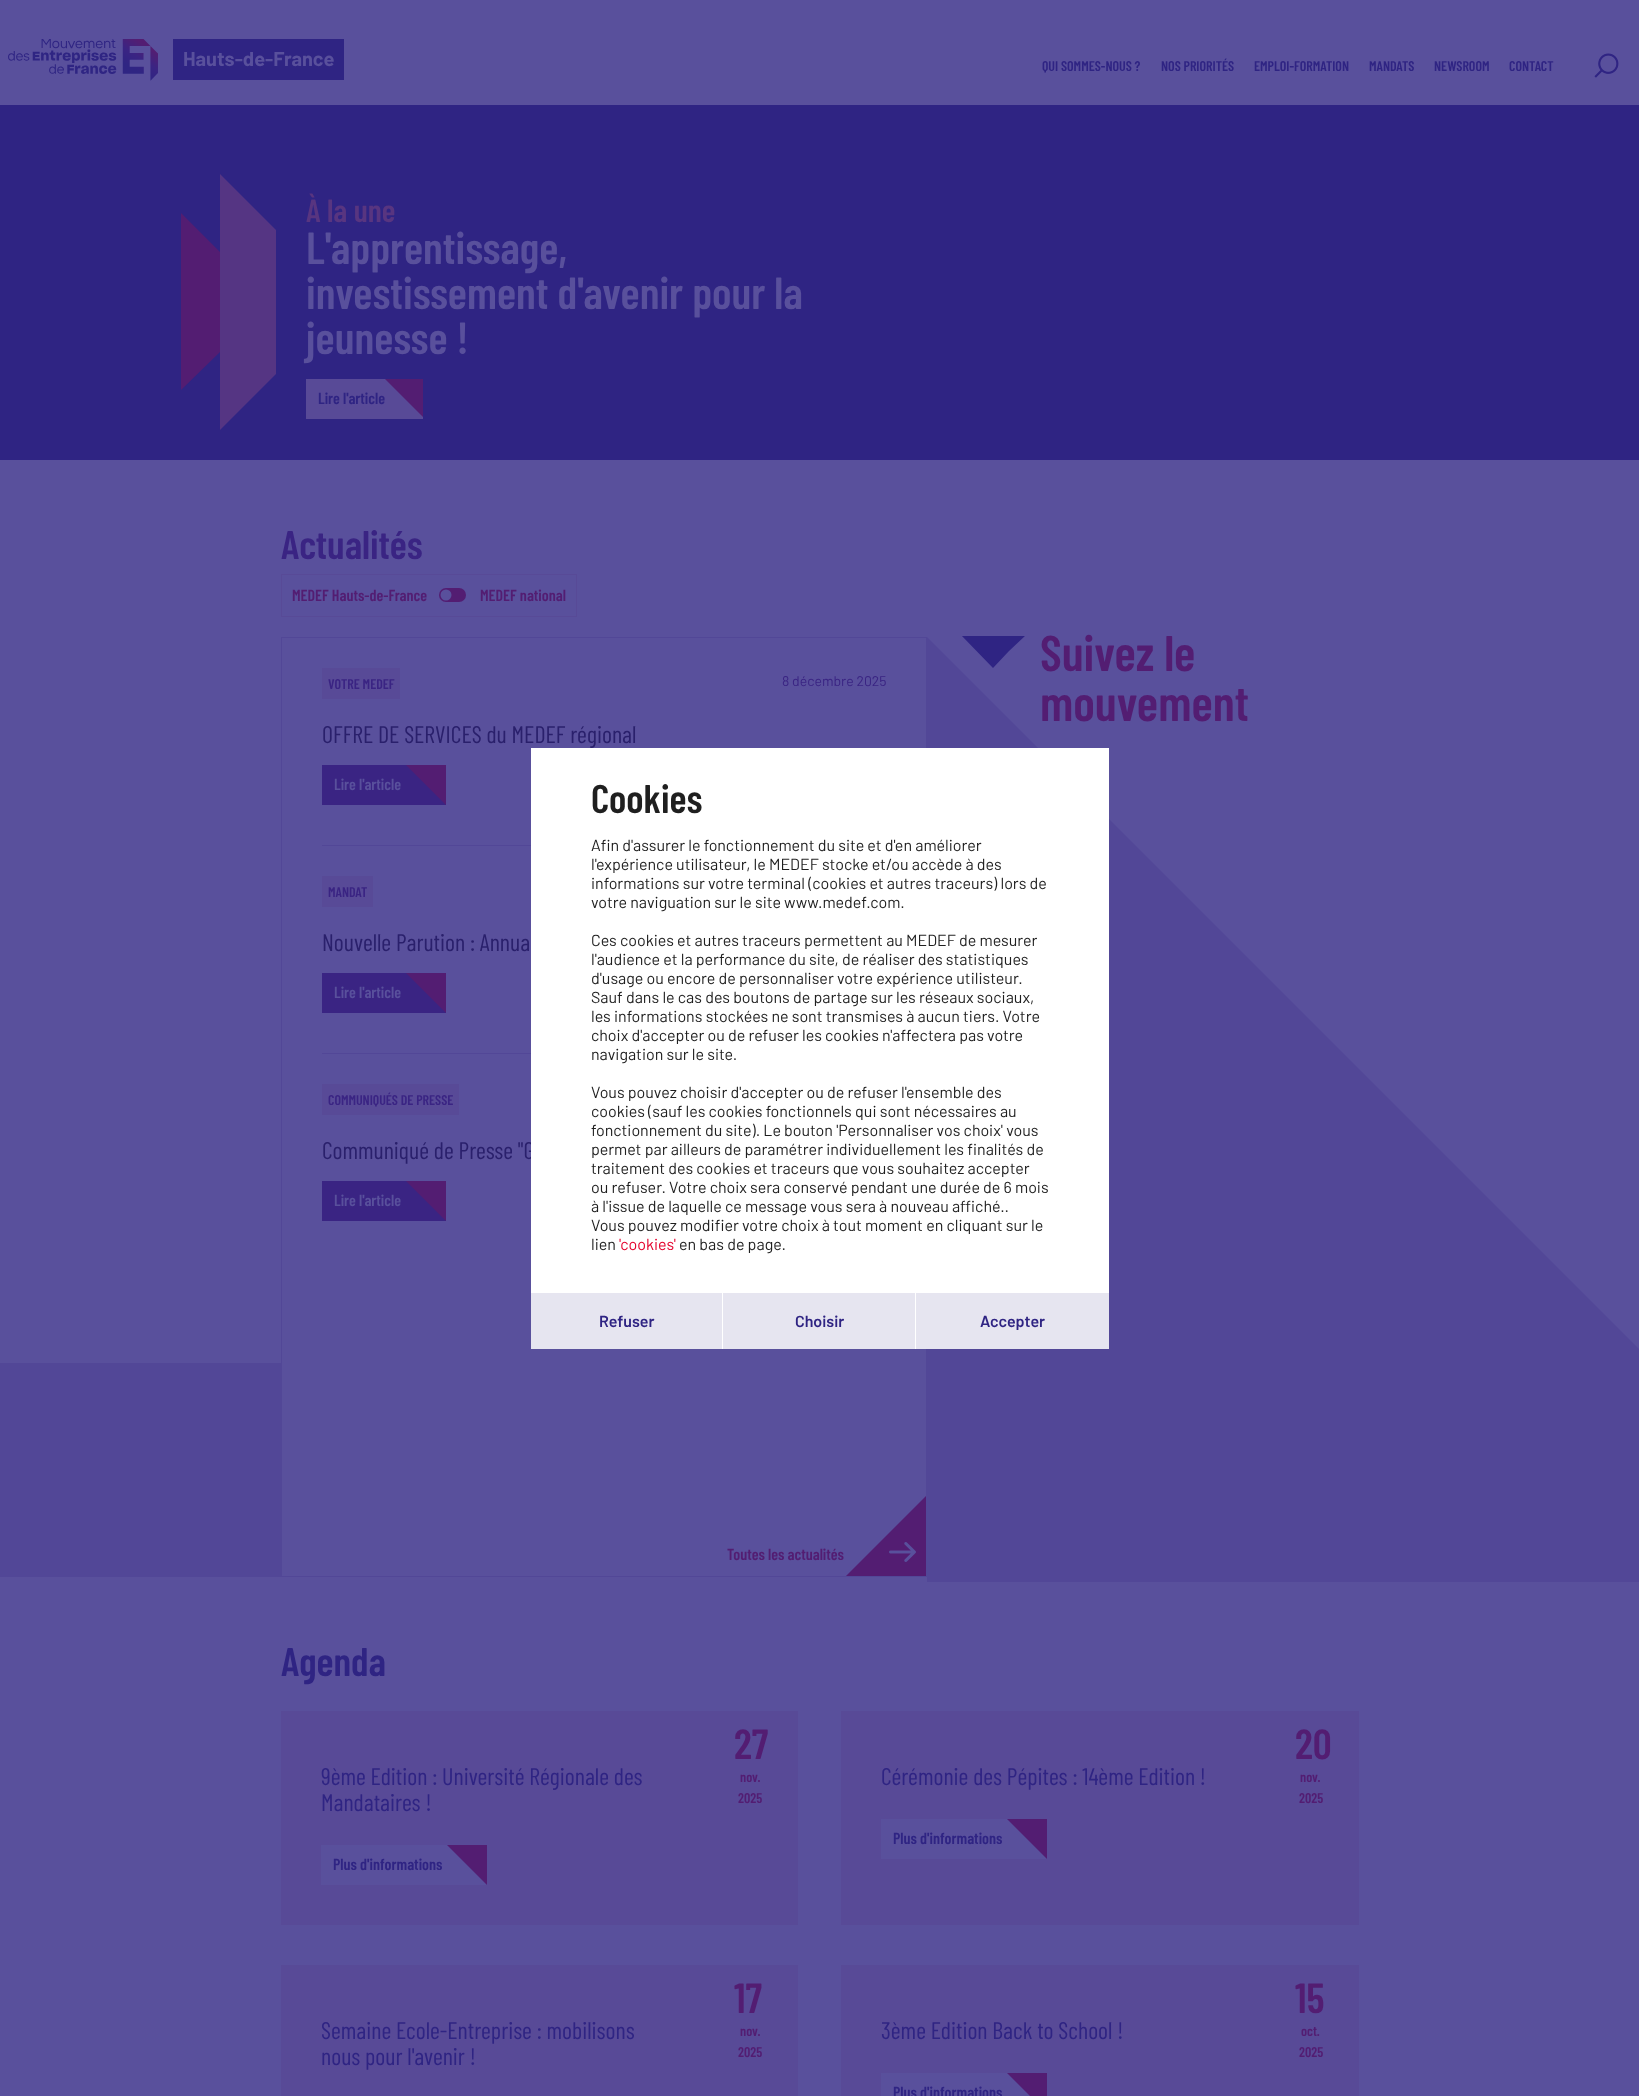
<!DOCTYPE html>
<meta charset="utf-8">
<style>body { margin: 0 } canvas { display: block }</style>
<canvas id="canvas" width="1639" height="2096"></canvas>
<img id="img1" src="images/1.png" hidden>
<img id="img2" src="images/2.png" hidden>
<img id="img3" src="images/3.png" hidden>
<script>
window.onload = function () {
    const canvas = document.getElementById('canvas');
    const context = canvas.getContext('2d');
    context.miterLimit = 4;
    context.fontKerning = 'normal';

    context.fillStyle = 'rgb(89, 80, 156)';
    context.fillRect(0, 0, 1639, 2096);
    context.drawImage(document.getElementById('img1'), 8, 39, 150, 42);
    context.fillStyle = 'rgb(47, 36, 131)';
    context.fillRect(173, 39, 171, 41);
    context.drawImage(document.getElementById('img2'), 1594, 53, 25, 25);
    context.fillRect(0, 105, 1639, 355);
    context.fillStyle = 'rgb(83, 29, 114)';
    context.beginPath();
    context.moveTo(181, 213);
    context.lineTo(220, 252);
    context.lineTo(220, 352);
    context.lineTo(181, 390);
    context.closePath();
    context.fill();
    context.fillStyle = 'rgb(85, 53, 131)';
    context.beginPath();
    context.moveTo(220, 174);
    context.lineTo(276, 230);
    context.lineTo(276, 374);
    context.lineTo(220, 430);
    context.closePath();
    context.fill();
    context.fillStyle = 'rgb(88, 74, 151)';
    context.fillRect(306, 379, 117, 40);
    context.fillStyle = 'rgb(83, 29, 114)';
    context.beginPath();
    context.moveTo(385, 379);
    context.lineTo(423, 379);
    context.lineTo(423, 417);
    context.closePath();
    context.fill();
    context.strokeStyle = 'rgb(88, 74, 151)';
    context.strokeRect(281.5, 574.5, 295, 42);
    context.beginPath();
    context.roundRect(439, 588, 27, 14, 7);
    context.fill();
    context.fillStyle = 'rgb(89, 80, 156)';
    context.beginPath();
    context.arc(446, 595, 5.5, 0, 2 * Math.PI);
    context.fill();
    context.fillStyle = 'rgb(82, 71, 151)';
    context.fillRect(0, 1363, 281, 214);
    context.strokeStyle = 'rgb(82, 71, 151)';
    context.strokeRect(281.5, 637.5, 645, 939);
    context.fillRect(322, 845, 209, 1);
    context.fillStyle = 'rgb(88, 74, 151)';
    context.fillRect(322, 668, 78, 31);
    context.fillStyle = 'rgb(58, 36, 131)';
    context.fillRect(322, 765, 124, 40);
    context.fillStyle = 'rgb(83, 29, 114)';
    context.beginPath();
    context.moveTo(406, 765);
    context.lineTo(446, 765);
    context.lineTo(446, 805);
    context.closePath();
    context.fill();
    context.fillStyle = 'rgb(82, 71, 151)';
    context.fillRect(322, 1053, 209, 1);
    context.fillStyle = 'rgb(88, 74, 151)';
    context.fillRect(322, 876, 51, 31);
    context.fillStyle = 'rgb(58, 36, 131)';
    context.fillRect(322, 973, 124, 40);
    context.fillStyle = 'rgb(83, 29, 114)';
    context.beginPath();
    context.moveTo(406, 973);
    context.lineTo(446, 973);
    context.lineTo(446, 1013);
    context.closePath();
    context.fill();
    context.fillStyle = 'rgb(88, 74, 151)';
    context.fillRect(322, 1084, 137, 31);
    context.fillStyle = 'rgb(58, 36, 131)';
    context.fillRect(322, 1181, 124, 40);
    context.fillStyle = 'rgb(83, 29, 114)';
    context.beginPath();
    context.moveTo(406, 1181);
    context.lineTo(446, 1181);
    context.lineTo(446, 1221);
    context.closePath();
    context.fill();
    context.beginPath();
    context.moveTo(926, 1576);
    context.lineTo(846, 1576);
    context.lineTo(926, 1496);
    context.closePath();
    context.fill();
    context.drawImage(document.getElementById('img3'), 889, 1542, 27, 20);
    context.fillStyle = 'rgb(82, 71, 151)';
    context.beginPath();
    context.moveTo(927, 1582);
    context.lineTo(927, 637);
    context.lineTo(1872, 1582);
    context.closePath();
    context.fill();
    context.save();
    context.beginPath();
    context.rect(960, 636, 65, 32);
    context.clip();
    context.fillStyle = 'rgb(47, 36, 131)';
    context.beginPath();
    context.moveTo(1009, 651);
    context.lineTo(1026, 635);
    context.lineTo(961, 635);
    context.lineTo(993, 668);
    context.closePath();
    context.fill();
    context.restore();
    context.fillStyle = 'rgb(88, 74, 151)';
    context.fillRect(281, 1711, 517, 214);
    context.fillStyle = 'rgb(89, 80, 156)';
    context.fillRect(321, 1845, 166, 40);
    context.fillStyle = 'rgb(83, 29, 114)';
    context.beginPath();
    context.moveTo(447, 1845);
    context.lineTo(487, 1845);
    context.lineTo(487, 1885);
    context.closePath();
    context.fill();
    context.fillStyle = 'rgb(88, 74, 151)';
    context.fillRect(841, 1711, 518, 214);
    context.fillStyle = 'rgb(89, 80, 156)';
    context.fillRect(881, 1819, 166, 40);
    context.fillStyle = 'rgb(83, 29, 114)';
    context.beginPath();
    context.moveTo(1007, 1819);
    context.lineTo(1047, 1819);
    context.lineTo(1047, 1859);
    context.closePath();
    context.fill();
    context.fillStyle = 'rgb(88, 74, 151)';
    context.fillRect(281, 1965, 517, 131);
    context.fillRect(841, 1965, 518, 131);
    context.fillStyle = 'rgb(89, 80, 156)';
    context.fillRect(881, 2073, 149, 23);
    context.fillStyle = 'rgb(83, 29, 114)';
    context.beginPath();
    context.moveTo(1007, 2073);
    context.lineTo(1047, 2073);
    context.lineTo(1047, 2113);
    context.closePath();
    context.fill();
    context.fillStyle = 'rgb(230, 229, 240)';
    context.fillRect(531, 1293, 191, 56);
    context.fillStyle = 'rgb(255, 255, 255)';
    context.fillRect(722, 1293, 1, 56);
    context.fillStyle = 'rgb(230, 229, 240)';
    context.fillRect(723, 1293, 192, 56);
    context.fillStyle = 'rgb(255, 255, 255)';
    context.fillRect(915, 1293, 1, 56);
    context.fillStyle = 'rgb(230, 229, 240)';
    context.fillRect(916, 1293, 193, 56);
    context.font = 'bold 20px Barlow';
    context.fillStyle = 'rgb(89, 80, 156)';
    context.fillText('Hauts-de-France', 183, 66);
    context.font = '600 14px Barlow Condensed';
    context.fillStyle = 'rgb(47, 36, 131)';
    context.fillText('QUI SOMMES-NOUS ?', 1042, 71);
    context.fillText('NOS PRIORITÉS', 1161, 71);
    context.fillText('EMPLOI-FORMATION', 1254, 71);
    context.fillText('MANDATS', 1369, 71);
    context.fillText('NEWSROOM', 1434, 71);
    context.fillText('CONTACT', 1509, 71);
    context.font = '600 32px Barlow Condensed';
    context.fillStyle = 'rgb(88, 53, 128)';
    context.fillText('À la une', 306, 222);
    context.font = '600 45px Barlow Condensed';
    context.fillStyle = 'rgb(89, 80, 156)';
    context.fillText('L\'apprentissage,', 306, 264);
    context.fillText('investissement d\'avenir pour la', 306, 309);
    context.fillText('jeunesse !', 306, 354);
    context.font = '600 16px Barlow Condensed';
    context.fillStyle = 'rgb(47, 36, 131)';
    context.fillText('Lire l\'article', 318, 404);
    context.font = '600 40px Barlow Condensed';
    context.fillStyle = 'rgb(58, 36, 131)';
    context.fillText('Actualités', 281, 559);
    context.font = '600 16px Barlow Condensed';
    context.fillStyle = 'rgb(83, 29, 114)';
    context.fillText('MEDEF Hauts-de-France', 292, 601);
    context.fillText('MEDEF national', 480, 601);
    context.font = '600 14px Barlow Condensed';
    context.fillStyle = 'rgb(58, 36, 131)';
    context.fillText('VOTRE MEDEF', 328, 689);
    context.font = '24px Barlow Condensed';
    context.fillStyle = 'rgb(42, 32, 108)';
    context.fillText('OFFRE DE SERVICES du MEDEF régional', 322, 743);
    context.font = '14px Barlow';
    context.fillStyle = 'rgb(58, 36, 131)';
    context.fillText('8 décembre 2025', 782, 686);
    context.font = '600 16px Barlow Condensed';
    context.fillStyle = 'rgb(89, 80, 156)';
    context.fillText('Lire l\'article', 334, 790);
    context.font = '600 14px Barlow Condensed';
    context.fillStyle = 'rgb(58, 36, 131)';
    context.fillText('MANDAT', 328, 897);
    context.font = '24px Barlow Condensed';
    context.fillStyle = 'rgb(42, 32, 108)';
    context.fillText('Nouvelle Parution : Annua', 322, 951);
    context.font = '600 16px Barlow Condensed';
    context.fillStyle = 'rgb(89, 80, 156)';
    context.fillText('Lire l\'article', 334, 998);
    context.font = '600 14px Barlow Condensed';
    context.fillStyle = 'rgb(58, 36, 131)';
    context.fillText('COMMUNIQUÉS DE PRESSE', 328, 1105);
    context.font = '24px Barlow Condensed';
    context.fillStyle = 'rgb(42, 32, 108)';
    context.fillText('Communiqué de Presse "G', 322, 1159);
    context.font = '600 16px Barlow Condensed';
    context.fillStyle = 'rgb(89, 80, 156)';
    context.fillText('Lire l\'article', 334, 1206);
    context.fillStyle = 'rgb(83, 29, 114)';
    context.fillText('Toutes les actualités', 727, 1560);
    context.font = '600 50px Barlow Condensed';
    context.fillText('Suivez le', 1040, 671);
    context.fillText('mouvement', 1040, 721);
    context.font = '600 40px Barlow Condensed';
    context.fillStyle = 'rgb(47, 36, 131)';
    context.fillText('Agenda', 281, 1676);
    context.font = '24px Barlow Condensed';
    context.fillText('9ème Edition : Université Régionale des', 321, 1785);
    context.fillText('Mandataires !', 321, 1811);
    context.font = '600 42px Barlow Condensed';
    context.fillStyle = 'rgb(83, 29, 114)';
    context.fillText('27', 734, 1759);
    context.font = '600 14px Barlow Condensed';
    context.fillText('nov.', 740, 1782);
    context.fillText('2025', 738, 1803);
    context.font = '600 16px Barlow Condensed';
    context.fillStyle = 'rgb(47, 36, 131)';
    context.fillText('Plus d\'informations', 333, 1870);
    context.font = '24px Barlow Condensed';
    context.fillText('Cérémonie des Pépites : 14ème Edition !', 881, 1785);
    context.font = '600 42px Barlow Condensed';
    context.fillStyle = 'rgb(83, 29, 114)';
    context.fillText('20', 1295, 1759);
    context.font = '600 14px Barlow Condensed';
    context.fillText('nov.', 1300, 1782);
    context.fillText('2025', 1299, 1803);
    context.font = '600 16px Barlow Condensed';
    context.fillStyle = 'rgb(47, 36, 131)';
    context.fillText('Plus d\'informations', 893, 1844);
    context.font = '24px Barlow Condensed';
    context.fillText('Semaine Ecole-Entreprise : mobilisons', 321, 2039);
    context.fillText('nous pour l\'avenir !', 321, 2065);
    context.font = '600 42px Barlow Condensed';
    context.fillStyle = 'rgb(83, 29, 114)';
    context.fillText('17', 734, 2013);
    context.font = '600 14px Barlow Condensed';
    context.fillText('nov.', 740, 2036);
    context.fillText('2025', 738, 2057);
    context.font = '24px Barlow Condensed';
    context.fillStyle = 'rgb(47, 36, 131)';
    context.fillText('3ème Edition Back to School !', 881, 2039);
    context.font = '600 42px Barlow Condensed';
    context.fillStyle = 'rgb(83, 29, 114)';
    context.fillText('15', 1295, 2013);
    context.font = '600 14px Barlow Condensed';
    context.fillText('oct.', 1301, 2036);
    context.fillText('2025', 1299, 2057);
    context.font = '600 16px Barlow Condensed';
    context.fillStyle = 'rgb(47, 36, 131)';
    context.fillText('Plus d\'informations', 893, 2098);
    context.fillStyle = 'rgb(255, 255, 255)';
    context.fillRect(531, 748, 578, 545);
    context.font = '600 40px Barlow Condensed';
    context.fillStyle = 'rgb(31, 31, 31)';
    context.fillText('Cookies', 591, 813);
    context.font = '16px Barlow';
    context.fillText('Afin d\'assurer le fonctionnement du site et d\'en améliorer', 591, 851);
    context.fillText('l\'expérience utilisateur, le MEDEF stocke et/ou accède à des', 591, 870);
    context.fillText('informations sur votre terminal (cookies et autres traceurs) lors de', 591, 889);
    context.fillText('votre naviguation sur le site www.medef.com.', 591, 908);
    context.fillText('Ces cookies et autres traceurs permettent au MEDEF de mesurer', 591, 946);
    context.fillText('l\'audience et la performance du site, de réaliser des statistiques', 591, 965);
    context.fillText('d\'usage ou encore de personnaliser votre expérience utilisteur.', 591, 984);
    context.fillText('Sauf dans le cas des boutons de partage sur les réseaux sociaux,', 591, 1003);
    context.fillText('les informations stockées ne sont transmises à aucun tiers. Votre', 591, 1022);
    context.fillText('choix d\'accepter ou de refuser les cookies n\'affectera pas votre', 591, 1041);
    context.fillText('navigation sur le site.', 591, 1060);
    context.fillText('Vous pouvez choisir d\'accepter ou de refuser l\'ensemble des', 591, 1098);
    context.fillText('cookies (sauf les cookies fonctionnels qui sont nécessaires au', 591, 1117);
    context.fillText('fonctionnement du site). Le bouton \'Personnaliser vos choix\' vous', 591, 1136);
    context.fillText('permet par ailleurs de paramétrer individuellement les finalités de', 591, 1155);
    context.fillText('traitement des cookies et traceurs que vous souhaitez accepter', 591, 1174);
    context.fillText('ou refuser. Votre choix sera conservé pendant une durée de 6 mois', 591, 1193);
    context.fillText('à l\'issue de laquelle ce message vous sera à nouveau affiché..', 591, 1212);
    context.fillText('Vous pouvez modifier votre choix à tout moment en cliquant sur le', 591, 1231);
    context.fillText('lien', 591, 1250);
    context.fillStyle = 'rgb(228, 0, 44)';
    context.fillText('\'cookies\'', 619, 1250);
    context.fillStyle = 'rgb(31, 31, 31)';
    context.fillText('en bas de page.', 679, 1250);
    context.font = '600 16px Barlow';
    context.fillStyle = 'rgb(47, 36, 131)';
    context.fillText('Refuser', 599, 1327);
    context.fillText('Choisir', 795, 1327);
    context.fillText('Accepter', 980, 1327);
};
</script>
